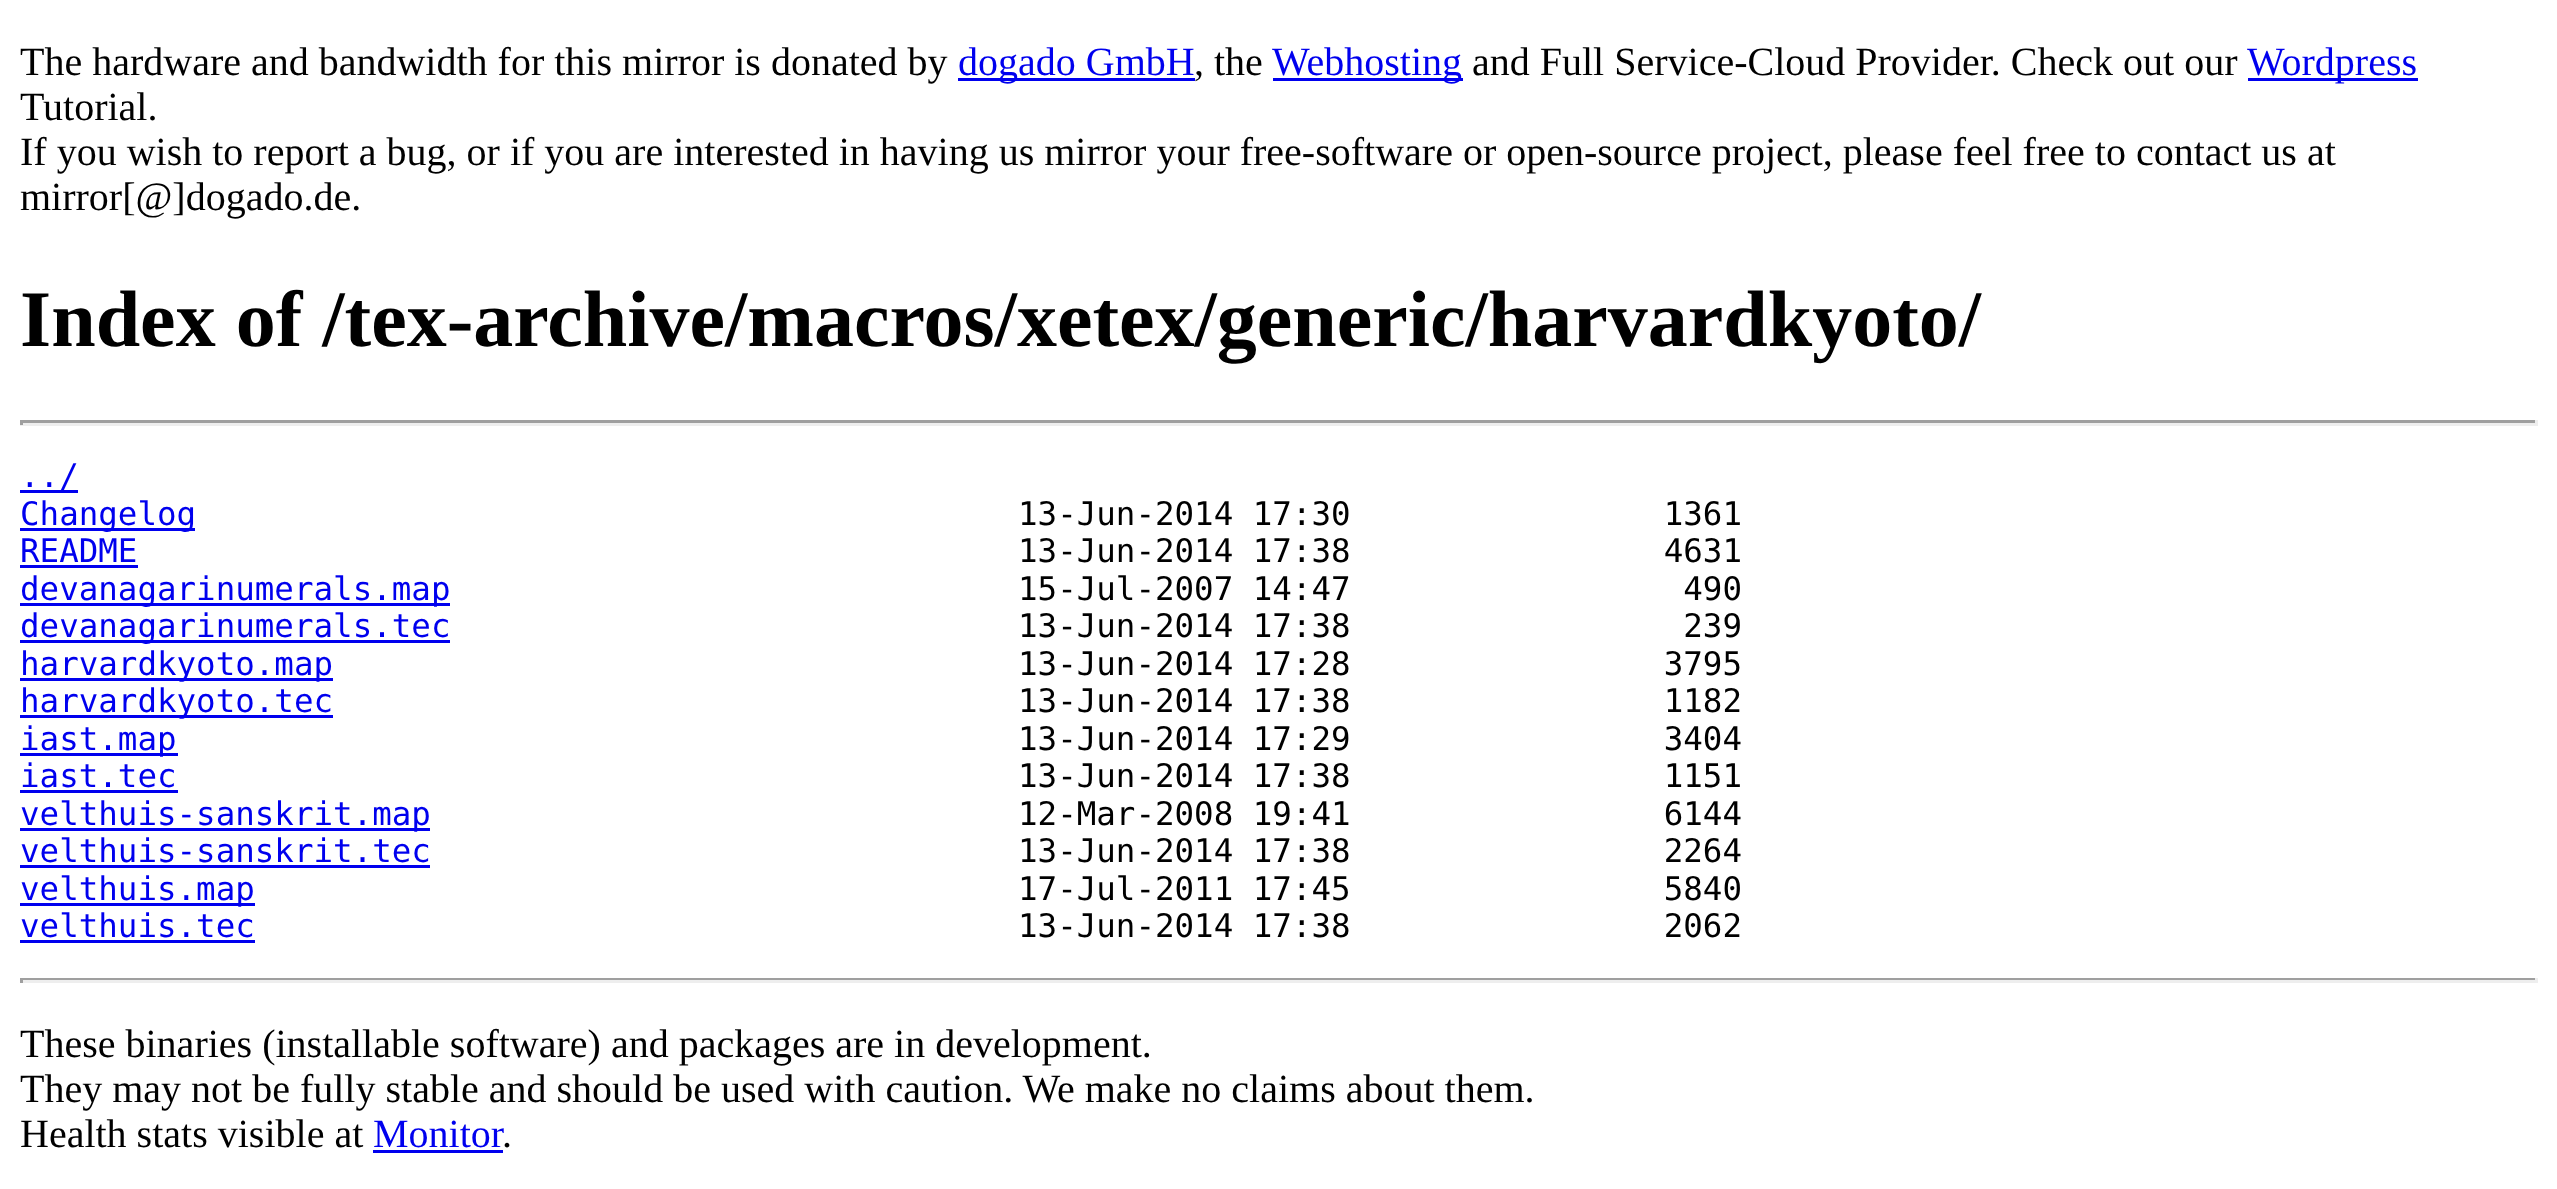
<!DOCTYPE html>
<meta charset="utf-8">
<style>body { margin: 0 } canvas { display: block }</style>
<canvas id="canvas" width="2557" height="1189"></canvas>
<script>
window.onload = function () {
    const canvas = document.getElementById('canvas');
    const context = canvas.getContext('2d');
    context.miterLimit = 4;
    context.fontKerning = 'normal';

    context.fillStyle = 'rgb(255, 255, 255)';
    context.fillRect(0, 0, 2557, 1189);
    context.fillStyle = 'rgb(0, 0, 238)';
    context.fillRect(958, 78, 237, 3);
    context.fillRect(1273, 78, 190, 3);
    context.fillRect(2248, 78, 170, 3);
    context.fillStyle = 'rgb(159, 159, 159)';
    context.fillRect(20, 420, 2518, 3);
    context.fillStyle = 'rgb(238, 238, 238)';
    context.fillRect(2535, 420, 3, 5);
    context.fillRect(20, 423, 2518, 3);
    context.fillStyle = 'rgb(159, 159, 159)';
    context.fillRect(20, 420, 3, 5);
    context.fillStyle = 'rgb(0, 0, 238)';
    context.fillRect(20, 490, 58, 3);
    context.fillRect(20, 528, 175, 3);
    context.fillRect(20, 565, 118, 3);
    context.fillRect(20, 603, 430, 3);
    context.fillRect(20, 640, 430, 3);
    context.fillRect(20, 678, 313, 3);
    context.fillRect(20, 715, 313, 3);
    context.fillRect(20, 753, 158, 3);
    context.fillRect(20, 790, 158, 3);
    context.fillRect(20, 828, 410, 3);
    context.fillRect(20, 865, 410, 3);
    context.fillRect(20, 903, 235, 3);
    context.fillRect(20, 940, 235, 3);
    context.fillStyle = 'rgb(159, 159, 159)';
    context.fillRect(20, 978, 2518, 2);
    context.fillStyle = 'rgb(238, 238, 238)';
    context.fillRect(2535, 978, 3, 5);
    context.fillRect(20, 980, 2518, 3);
    context.fillStyle = 'rgb(159, 159, 159)';
    context.fillRect(20, 978, 3, 5);
    context.fillStyle = 'rgb(0, 0, 238)';
    context.fillRect(373, 1150, 130, 3);
    context.font = '40px Liberation Serif';
    context.fillStyle = 'rgb(0, 0, 0)';
    context.fillText('The hardware and bandwidth for this mirror is donated by', 20, 75);
    context.fillStyle = 'rgb(0, 0, 238)';
    context.fillText('dogado GmbH', 958, 75);
    context.fillStyle = 'rgb(0, 0, 0)';
    context.fillText(', the', 1194, 75);
    context.fillStyle = 'rgb(0, 0, 238)';
    context.fillText('Webhosting', 1272, 75);
    context.fillStyle = 'rgb(0, 0, 0)';
    context.fillText('and Full Service-Cloud Provider. Check out our', 1472, 75);
    context.fillStyle = 'rgb(0, 0, 238)';
    context.fillText('Wordpress', 2247, 75);
    context.fillStyle = 'rgb(0, 0, 0)';
    context.fillText('Tutorial.', 20, 120);
    context.fillText('If you wish to report a bug, or if you are interested in having us mirror your free-software or open-source project, please feel free to contact us at', 20, 165);
    context.fillText('mirror[@]dogado.de.', 20, 210);
    context.font = 'bold 80px Liberation Serif';
    context.fillText('Index of /tex-archive/macros/xetex/generic/harvardkyoto/', 20, 346);
    context.font = '32.5px DejaVu Sans Mono';
    context.fillStyle = 'rgb(0, 0, 238)';
    context.fillText('../', 20, 487);
    context.fillText('Changelog', 20, 525);
    context.fillStyle = 'rgb(0, 0, 0)';
    context.fillText('13-Jun-2014 17:30                1361', 1018, 525);
    context.fillStyle = 'rgb(0, 0, 238)';
    context.fillText('README', 20, 562);
    context.fillStyle = 'rgb(0, 0, 0)';
    context.fillText('13-Jun-2014 17:38                4631', 1018, 562);
    context.fillStyle = 'rgb(0, 0, 238)';
    context.fillText('devanagarinumerals.map', 20, 600);
    context.fillStyle = 'rgb(0, 0, 0)';
    context.fillText('15-Jul-2007 14:47                 490', 1018, 600);
    context.fillStyle = 'rgb(0, 0, 238)';
    context.fillText('devanagarinumerals.tec', 20, 637);
    context.fillStyle = 'rgb(0, 0, 0)';
    context.fillText('13-Jun-2014 17:38                 239', 1018, 637);
    context.fillStyle = 'rgb(0, 0, 238)';
    context.fillText('harvardkyoto.map', 20, 675);
    context.fillStyle = 'rgb(0, 0, 0)';
    context.fillText('13-Jun-2014 17:28                3795', 1018, 675);
    context.fillStyle = 'rgb(0, 0, 238)';
    context.fillText('harvardkyoto.tec', 20, 712);
    context.fillStyle = 'rgb(0, 0, 0)';
    context.fillText('13-Jun-2014 17:38                1182', 1018, 712);
    context.fillStyle = 'rgb(0, 0, 238)';
    context.fillText('iast.map', 20, 750);
    context.fillStyle = 'rgb(0, 0, 0)';
    context.fillText('13-Jun-2014 17:29                3404', 1018, 750);
    context.fillStyle = 'rgb(0, 0, 238)';
    context.fillText('iast.tec', 20, 787);
    context.fillStyle = 'rgb(0, 0, 0)';
    context.fillText('13-Jun-2014 17:38                1151', 1018, 787);
    context.fillStyle = 'rgb(0, 0, 238)';
    context.fillText('velthuis-sanskrit.map', 20, 825);
    context.fillStyle = 'rgb(0, 0, 0)';
    context.fillText('12-Mar-2008 19:41                6144', 1018, 825);
    context.fillStyle = 'rgb(0, 0, 238)';
    context.fillText('velthuis-sanskrit.tec', 20, 862);
    context.fillStyle = 'rgb(0, 0, 0)';
    context.fillText('13-Jun-2014 17:38                2264', 1018, 862);
    context.fillStyle = 'rgb(0, 0, 238)';
    context.fillText('velthuis.map', 20, 900);
    context.fillStyle = 'rgb(0, 0, 0)';
    context.fillText('17-Jul-2011 17:45                5840', 1018, 900);
    context.fillStyle = 'rgb(0, 0, 238)';
    context.fillText('velthuis.tec', 20, 937);
    context.fillStyle = 'rgb(0, 0, 0)';
    context.fillText('13-Jun-2014 17:38                2062', 1018, 937);
    context.font = '40px Liberation Serif';
    context.fillText('These binaries (installable software) and packages are in development.', 20, 1057);
    context.fillText('They may not be fully stable and should be used with caution. We make no claims about them.', 20, 1102);
    context.fillText('Health stats visible at', 20, 1147);
    context.fillStyle = 'rgb(0, 0, 238)';
    context.fillText('Monitor', 373, 1147);
    context.fillStyle = 'rgb(0, 0, 0)';
    context.fillText('.', 502, 1147);
};
</script>
